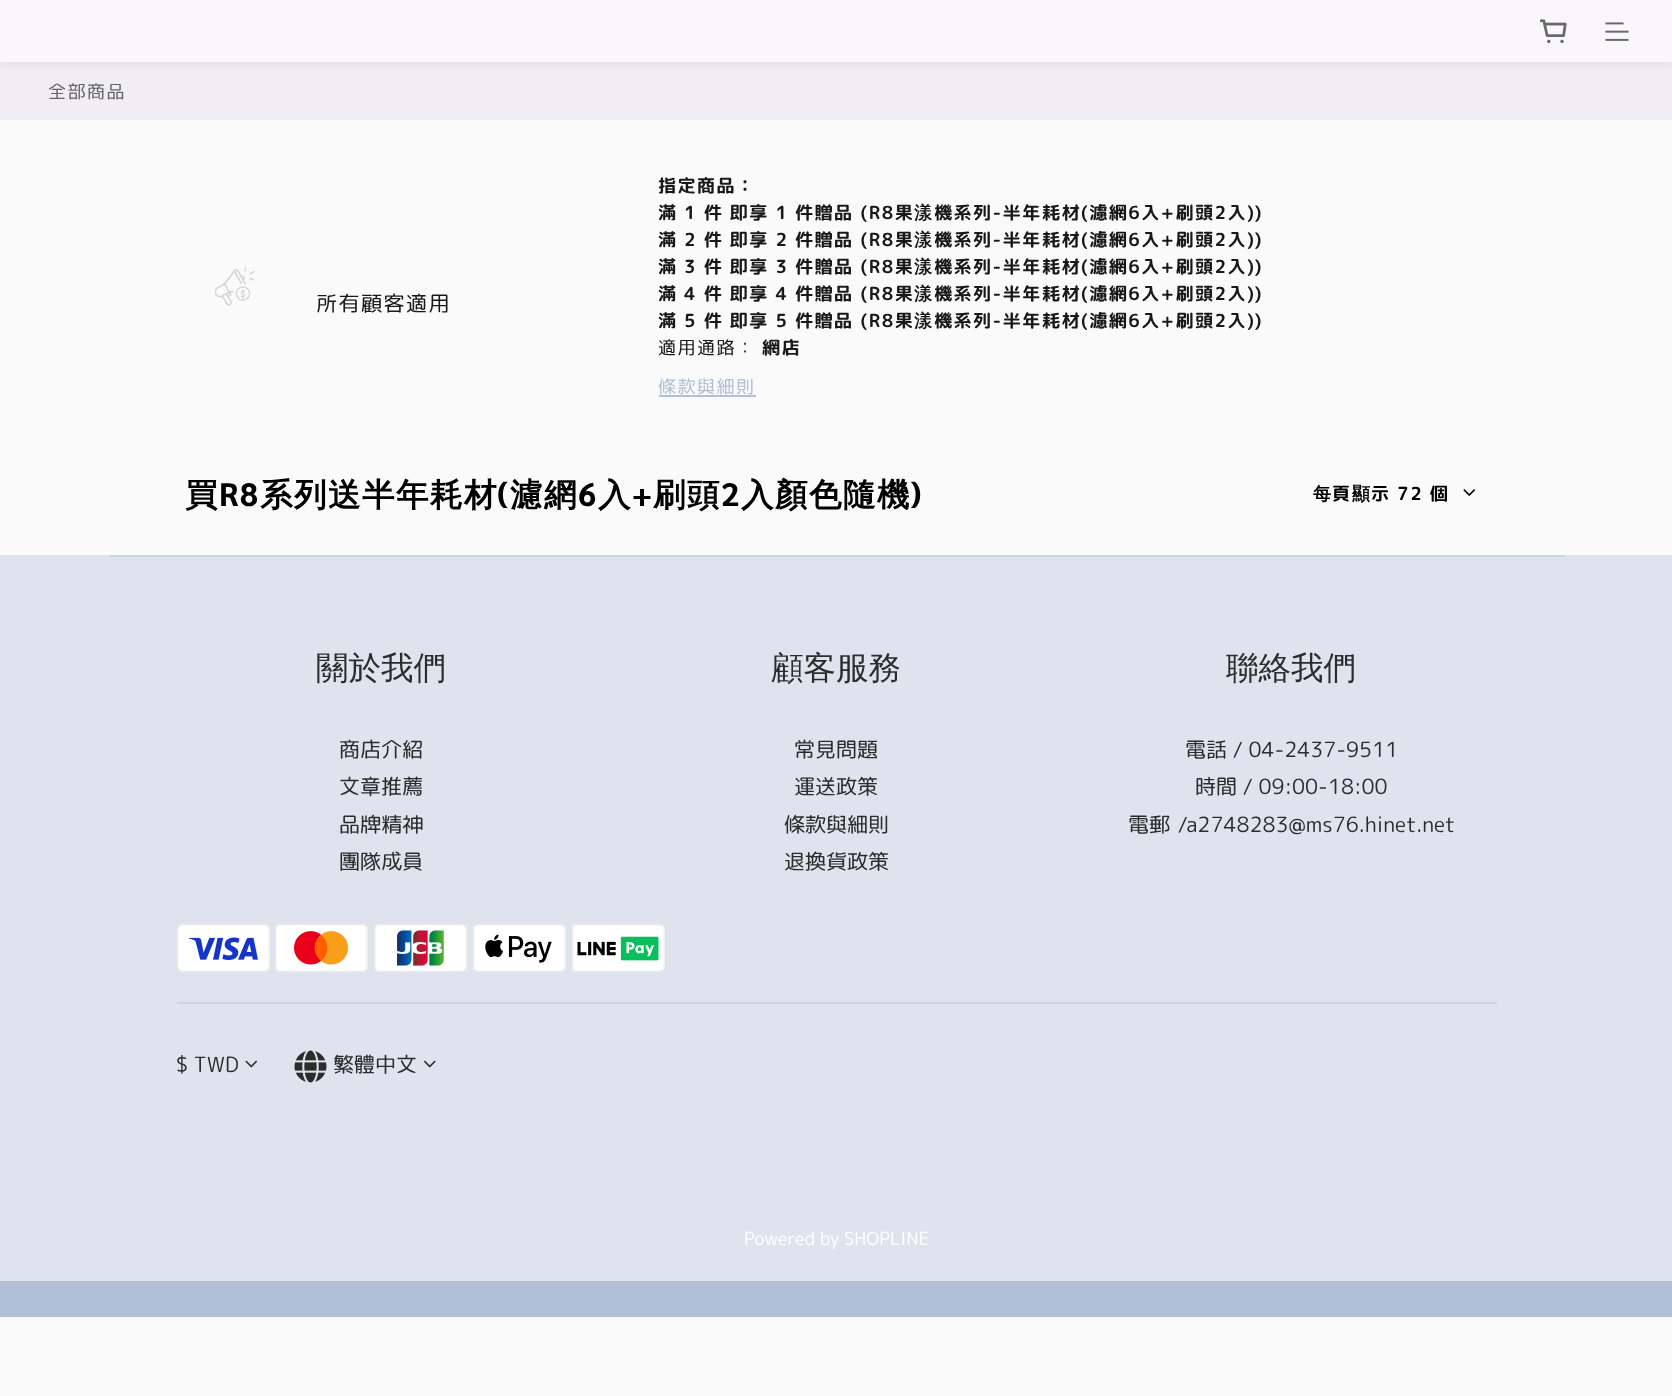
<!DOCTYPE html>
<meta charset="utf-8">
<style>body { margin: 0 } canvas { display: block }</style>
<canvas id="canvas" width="1672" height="1396"></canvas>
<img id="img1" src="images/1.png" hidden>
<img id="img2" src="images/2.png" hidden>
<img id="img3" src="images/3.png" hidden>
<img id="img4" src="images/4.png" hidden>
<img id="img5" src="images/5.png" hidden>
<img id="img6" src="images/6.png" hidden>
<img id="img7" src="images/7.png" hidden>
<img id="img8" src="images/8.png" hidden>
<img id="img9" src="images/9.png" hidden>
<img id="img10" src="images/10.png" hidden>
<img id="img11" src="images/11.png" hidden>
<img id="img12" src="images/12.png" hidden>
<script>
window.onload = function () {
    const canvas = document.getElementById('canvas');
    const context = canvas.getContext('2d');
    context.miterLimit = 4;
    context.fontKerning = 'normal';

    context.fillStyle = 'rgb(249, 250, 249)';
    context.fillRect(0, 0, 1672, 1396);
    context.fillStyle = 'rgb(240, 237, 243)';
    context.fillRect(0, 62, 1672, 58);
    context.fillStyle = 'rgba(0, 0, 0, 0.06)';
    context.filter = 'blur(4.5px)';
    context.beginPath();
    context.rect(0, 3, 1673, 62);
    context.fill();
    context.filter = 'none';
    context.fillStyle = 'rgb(249, 247, 251)';
    context.fillRect(0, 0, 1672, 62);
    context.drawImage(document.getElementById('img1'), 1540, 19, 27, 25);
    context.drawImage(document.getElementById('img2'), 1605, 22, 24, 19);
    context.drawImage(document.getElementById('img3'), 215, 267, 40, 39);
    context.fillStyle = 'rgb(177, 191, 215)';
    context.fillRect(659, 395, 97, 2);
    context.drawImage(document.getElementById('img4'), 1463, 489, 12, 7);
    context.fillStyle = 'rgb(222, 227, 238)';
    context.fillRect(0, 555, 1672, 726);
    context.fillStyle = 'rgb(205, 213, 229)';
    context.fillRect(110, 555, 1455, 2);
    context.drawImage(document.getElementById('img5'), 177, 924, 93, 48);
    context.drawImage(document.getElementById('img6'), 275, 924, 93, 48);
    context.drawImage(document.getElementById('img7'), 374, 924, 93, 48);
    context.drawImage(document.getElementById('img8'), 473, 924, 93, 48);
    context.drawImage(document.getElementById('img9'), 572, 924, 93, 48);
    context.fillRect(177, 1002, 1320, 2);
    context.drawImage(document.getElementById('img10'), 245, 1060, 13, 8);
    context.drawImage(document.getElementById('img11'), 294, 1050, 33, 33);
    context.drawImage(document.getElementById('img12'), 423, 1060, 13, 8);
    context.fillStyle = 'rgb(177, 191, 215)';
    context.fillRect(0, 1281, 1672, 36);
    context.letterSpacing = '1.5px';
    context.font = '18px "Rounded Mplus 1c"';
    context.fillStyle = 'rgb(102, 102, 102)';
    context.fillText('全部商品', 48, 98);
    context.font = '21px "Rounded Mplus 1c"';
    context.fillStyle = 'rgb(25, 25, 25)';
    context.fillText('所有顧客適用', 316, 311);
    context.font = 'bold 18px "Rounded Mplus 1c Bold"';
    context.fillText('指定商品：', 658, 192);
    context.fillText('滿 1 件 即享 1 件贈品 (R8果', 658, 219);
    context.font = 'bold 18px WenQuanYi Zen Hei';
    context.fillText('漾', 914, 219);
    context.font = 'bold 18px "Rounded Mplus 1c Bold"';
    context.fillText('機系列-半年耗材(濾網6入+刷頭2入))', 934, 219);
    context.fillText('滿 2 件 即享 2 件贈品 (R8果', 658, 246);
    context.font = 'bold 18px WenQuanYi Zen Hei';
    context.fillText('漾', 914, 246);
    context.font = 'bold 18px "Rounded Mplus 1c Bold"';
    context.fillText('機系列-半年耗材(濾網6入+刷頭2入))', 934, 246);
    context.fillText('滿 3 件 即享 3 件贈品 (R8果', 658, 273);
    context.font = 'bold 18px WenQuanYi Zen Hei';
    context.fillText('漾', 914, 273);
    context.font = 'bold 18px "Rounded Mplus 1c Bold"';
    context.fillText('機系列-半年耗材(濾網6入+刷頭2入))', 934, 273);
    context.fillText('滿 4 件 即享 4 件贈品 (R8果', 658, 300);
    context.font = 'bold 18px WenQuanYi Zen Hei';
    context.fillText('漾', 914, 300);
    context.font = 'bold 18px "Rounded Mplus 1c Bold"';
    context.fillText('機系列-半年耗材(濾網6入+刷頭2入))', 934, 300);
    context.fillText('滿 5 件 即享 5 件贈品 (R8果', 658, 327);
    context.font = 'bold 18px WenQuanYi Zen Hei';
    context.fillText('漾', 914, 327);
    context.font = 'bold 18px "Rounded Mplus 1c Bold"';
    context.fillText('機系列-半年耗材(濾網6入+刷頭2入))', 934, 327);
    context.font = '18px "Rounded Mplus 1c"';
    context.fillText('適用通路：', 658, 354);
    context.font = 'bold 18px "Rounded Mplus 1c Bold"';
    context.fillText('網店', 762, 354);
    context.font = '18px "Rounded Mplus 1c"';
    context.fillStyle = 'rgb(177, 191, 215)';
    context.fillText('條款與細則', 658, 393);
    context.font = 'bold 32.5px WenQuanYi Zen Hei';
    context.fillStyle = 'rgb(0, 0, 0)';
    context.fillText('買', 185, 506);
    context.font = 'bold 32.5px Sarabun';
    context.fillText('R8', 219, 506);
    context.font = 'bold 32.5px WenQuanYi Zen Hei';
    context.fillText('系列送半年耗材', 260, 506);
    context.font = 'bold 32.5px Sarabun';
    context.fillText('(', 497, 506);
    context.font = 'bold 32.5px WenQuanYi Zen Hei';
    context.fillText('濾網', 510, 506);
    context.font = 'bold 32.5px Sarabun';
    context.fillText('6', 578, 506);
    context.font = 'bold 32.5px WenQuanYi Zen Hei';
    context.fillText('入', 598, 506);
    context.font = 'bold 32.5px Sarabun';
    context.fillText('+', 632, 506);
    context.font = 'bold 32.5px WenQuanYi Zen Hei';
    context.fillText('刷頭', 653, 506);
    context.font = 'bold 32.5px Sarabun';
    context.fillText('2', 721, 506);
    context.font = 'bold 32.5px WenQuanYi Zen Hei';
    context.fillText('入顏色隨機', 741, 506);
    context.font = 'bold 32.5px Sarabun';
    context.fillText(')', 910, 506);
    context.font = 'bold 18px WenQuanYi Zen Hei';
    context.fillText('每', 1313, 500);
    context.font = 'bold 18px "Rounded Mplus 1c Bold"';
    context.fillText('頁', 1332, 500);
    context.font = 'bold 18px WenQuanYi Zen Hei';
    context.fillText('顯', 1352, 500);
    context.font = 'bold 18px "Rounded Mplus 1c Bold"';
    context.fillText('示 72 個', 1371, 500);
    context.letterSpacing = '0px';
    context.font = '500 32.5px WenQuanYi Zen Hei';
    context.fillStyle = 'rgb(44, 44, 44)';
    context.fillText('關於我們', 316, 679);
    context.font = '21px "Rounded Mplus 1c"';
    context.fillText('商店介紹', 339, 757);
    context.fillText('文章推薦', 339, 794);
    context.fillText('品牌精神', 339, 832);
    context.fillText('團隊成員', 339, 869);
    context.font = '500 32.5px WenQuanYi Zen Hei';
    context.fillText('顧客服務', 771, 679);
    context.font = '21px "Rounded Mplus 1c"';
    context.fillText('常見問題', 794, 757);
    context.fillText('運送政策', 794, 794);
    context.fillText('條款與細則', 784, 832);
    context.fillText('退換貨政策', 784, 869);
    context.font = '500 32.5px WenQuanYi Zen Hei';
    context.fillText('聯絡我們', 1226, 679);
    context.font = '21px "Rounded Mplus 1c"';
    context.fillText('電話 / 04-2437-9511', 1185, 757);
    context.fillText('時間 / 09:00-18:00', 1195, 794);
    context.wordSpacing = '2px';
    context.fillText('電郵 /a2748283@ms76.hinet.net', 1128, 832);
    context.wordSpacing = '0px';
    context.fillText('$ TWD', 176, 1072);
    context.fillText('繁體中文', 333, 1072);
    context.font = '18px "Rounded Mplus 1c"';
    context.fillStyle = 'rgb(255, 255, 255)';
    context.fillText('Powered by SHOPLINE', 744, 1245);
};
</script>
